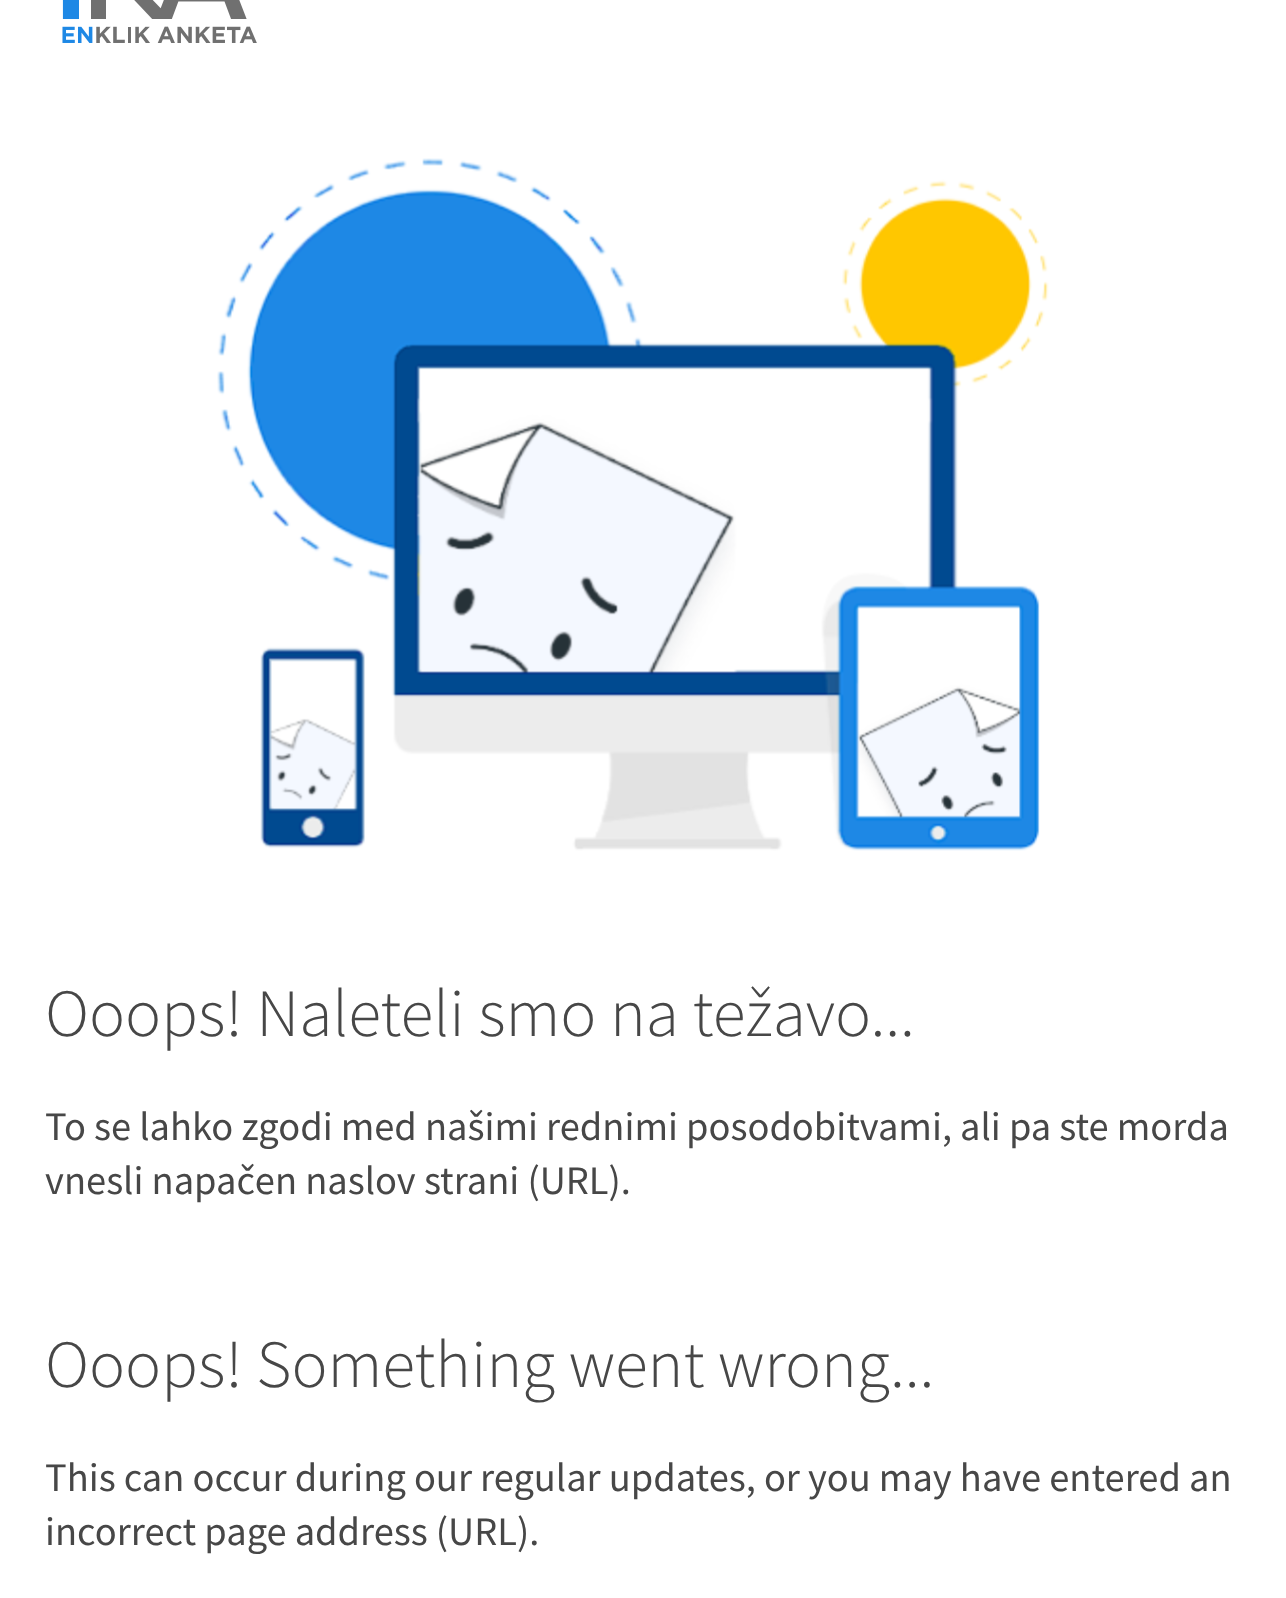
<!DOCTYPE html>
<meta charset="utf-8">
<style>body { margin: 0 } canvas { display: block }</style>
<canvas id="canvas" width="1286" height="1598"></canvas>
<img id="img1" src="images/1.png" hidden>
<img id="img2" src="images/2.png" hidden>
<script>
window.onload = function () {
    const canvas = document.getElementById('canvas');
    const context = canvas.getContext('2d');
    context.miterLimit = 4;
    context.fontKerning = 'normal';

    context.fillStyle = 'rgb(255, 255, 255)';
    context.fillRect(0, 0, 1286, 1598);
    context.drawImage(document.getElementById('img1'), 62, 0, 195, 43);
    context.drawImage(document.getElementById('img2'), 217, 158, 832, 693);
    context.font = '300 67.5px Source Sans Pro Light';
    context.fillStyle = 'rgb(71, 71, 71)';
    context.fillText('Ooops! Naleteli smo na težavo...', 45, 1036);
    context.font = '40.5px Source Sans Pro';
    context.fillText('To se lahko zgodi med našimi rednimi posodobitvami, ali pa ste morda', 45, 1140);
    context.fillText('vnesli napačen naslov strani (URL).', 45, 1194);
    context.font = '300 67.5px Source Sans Pro Light';
    context.fillText('Ooops! Something went wrong...', 45, 1387);
    context.font = '40.5px Source Sans Pro';
    context.fillText('This can occur during our regular updates, or you may have entered an', 45, 1491);
    context.fillText('incorrect page address (URL).', 45, 1545);
};
</script>
